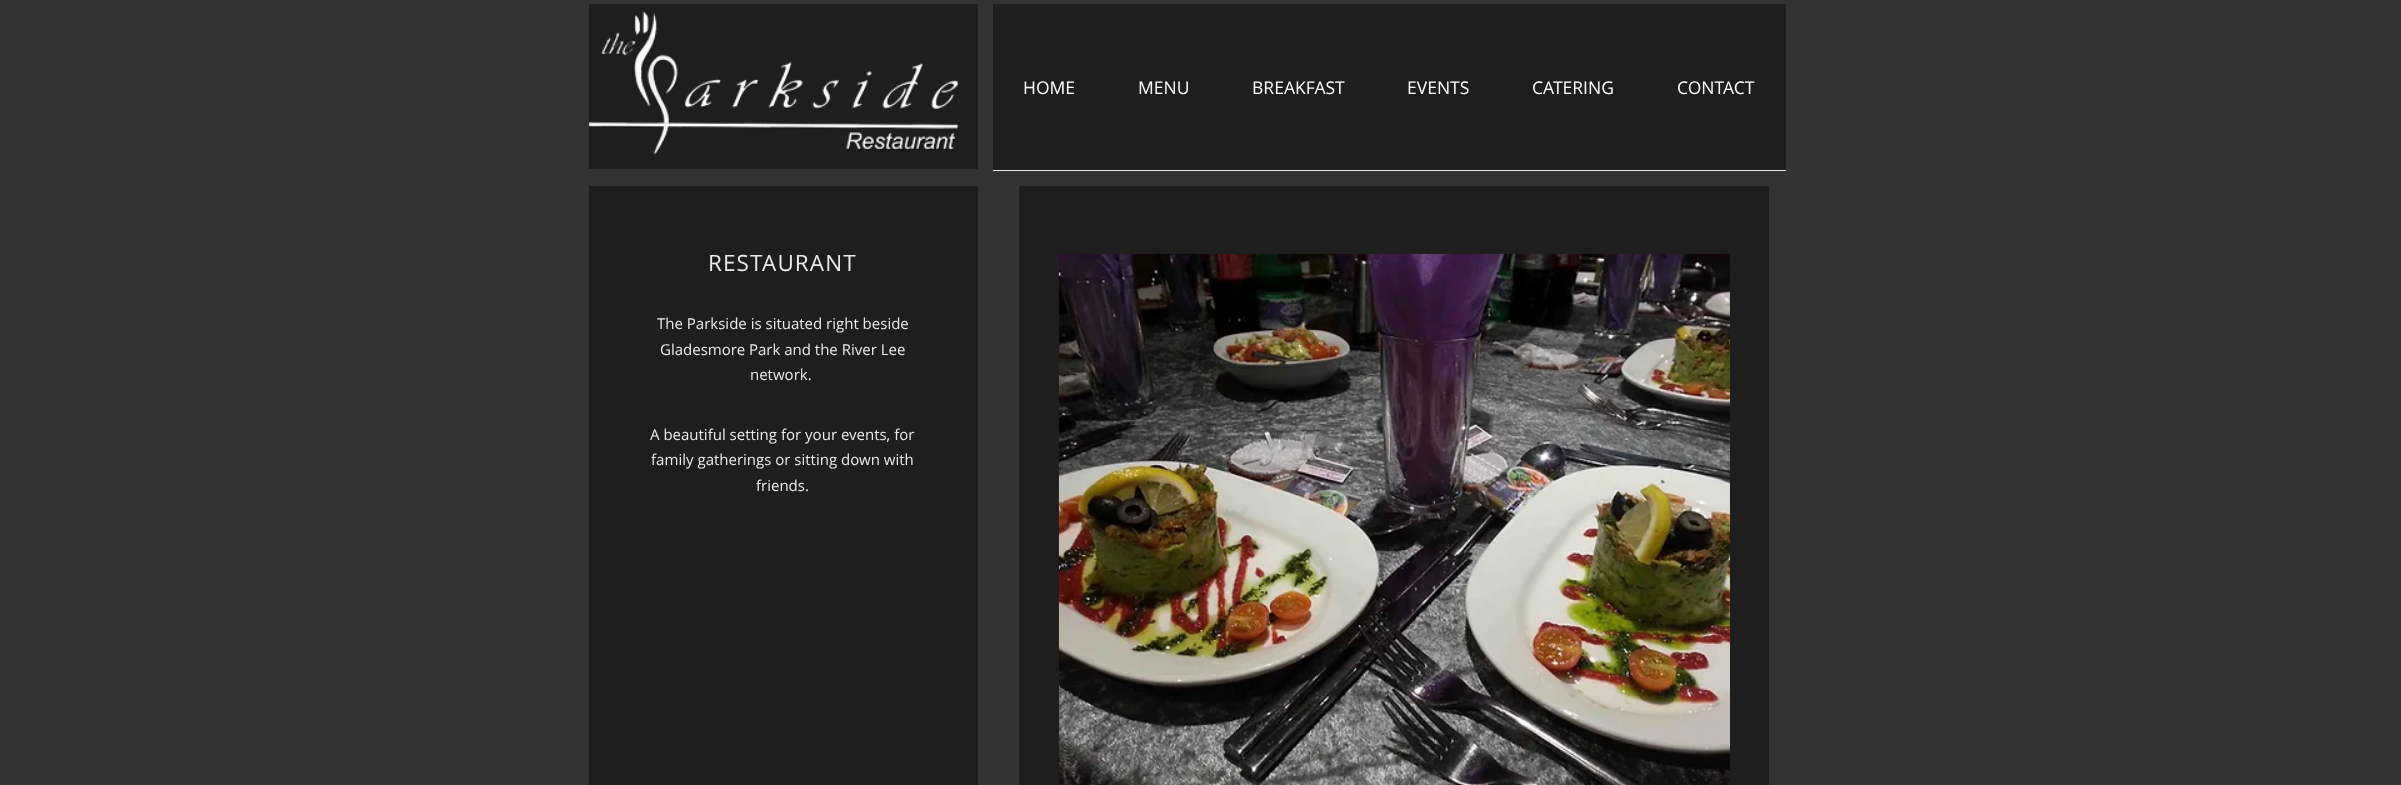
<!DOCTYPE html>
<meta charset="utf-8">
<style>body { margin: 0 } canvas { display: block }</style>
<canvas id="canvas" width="2401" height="785"></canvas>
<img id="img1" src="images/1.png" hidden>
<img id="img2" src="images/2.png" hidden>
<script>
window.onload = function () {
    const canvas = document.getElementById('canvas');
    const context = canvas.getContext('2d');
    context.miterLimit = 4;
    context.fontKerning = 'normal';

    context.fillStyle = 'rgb(51, 51, 51)';
    context.fillRect(0, 0, 2401, 785);
    context.fillStyle = 'rgb(30, 30, 30)';
    context.fillRect(589, 4, 389, 165);
    context.drawImage(document.getElementById('img1'), 588, 11, 371, 143);
    context.fillRect(993, 4, 793, 166);
    context.fillStyle = 'rgb(234, 234, 234)';
    context.fillRect(993, 170, 793, 1);
    context.fillStyle = 'rgb(30, 30, 30)';
    context.fillRect(589, 186, 389, 599);
    context.fillRect(1019, 186, 750, 599);
    context.drawImage(document.getElementById('img2'), 1058, 253, 672, 532);
    context.font = '17.5px Open Sans';
    context.fillStyle = 'rgb(255, 255, 255)';
    context.fillText('HOME', 1023, 94);
    context.fillText('MENU', 1138, 94);
    context.fillText('BREAKFAST', 1252, 94);
    context.fillText('EVENTS', 1407, 94);
    context.fillText('CATERING', 1532, 94);
    context.fillText('CONTACT', 1677, 94);
    context.letterSpacing = '1.1px';
    context.font = '22.5px Open Sans';
    context.fillStyle = 'rgb(234, 234, 234)';
    context.fillText('RESTAURANT', 708, 271);
    context.letterSpacing = '0px';
    context.font = '15px Open Sans';
    context.fillText('The Parkside is situated right beside', 657, 329);
    context.fillText('Gladesmore Park and the River Lee', 660, 355);
    context.fillText('network.', 750, 380);
    context.fillText('A beautiful setting for your events, for', 650, 440);
    context.fillText('family gatherings or sitting down with', 651, 465);
    context.fillText('friends.', 756, 491);
};
</script>
